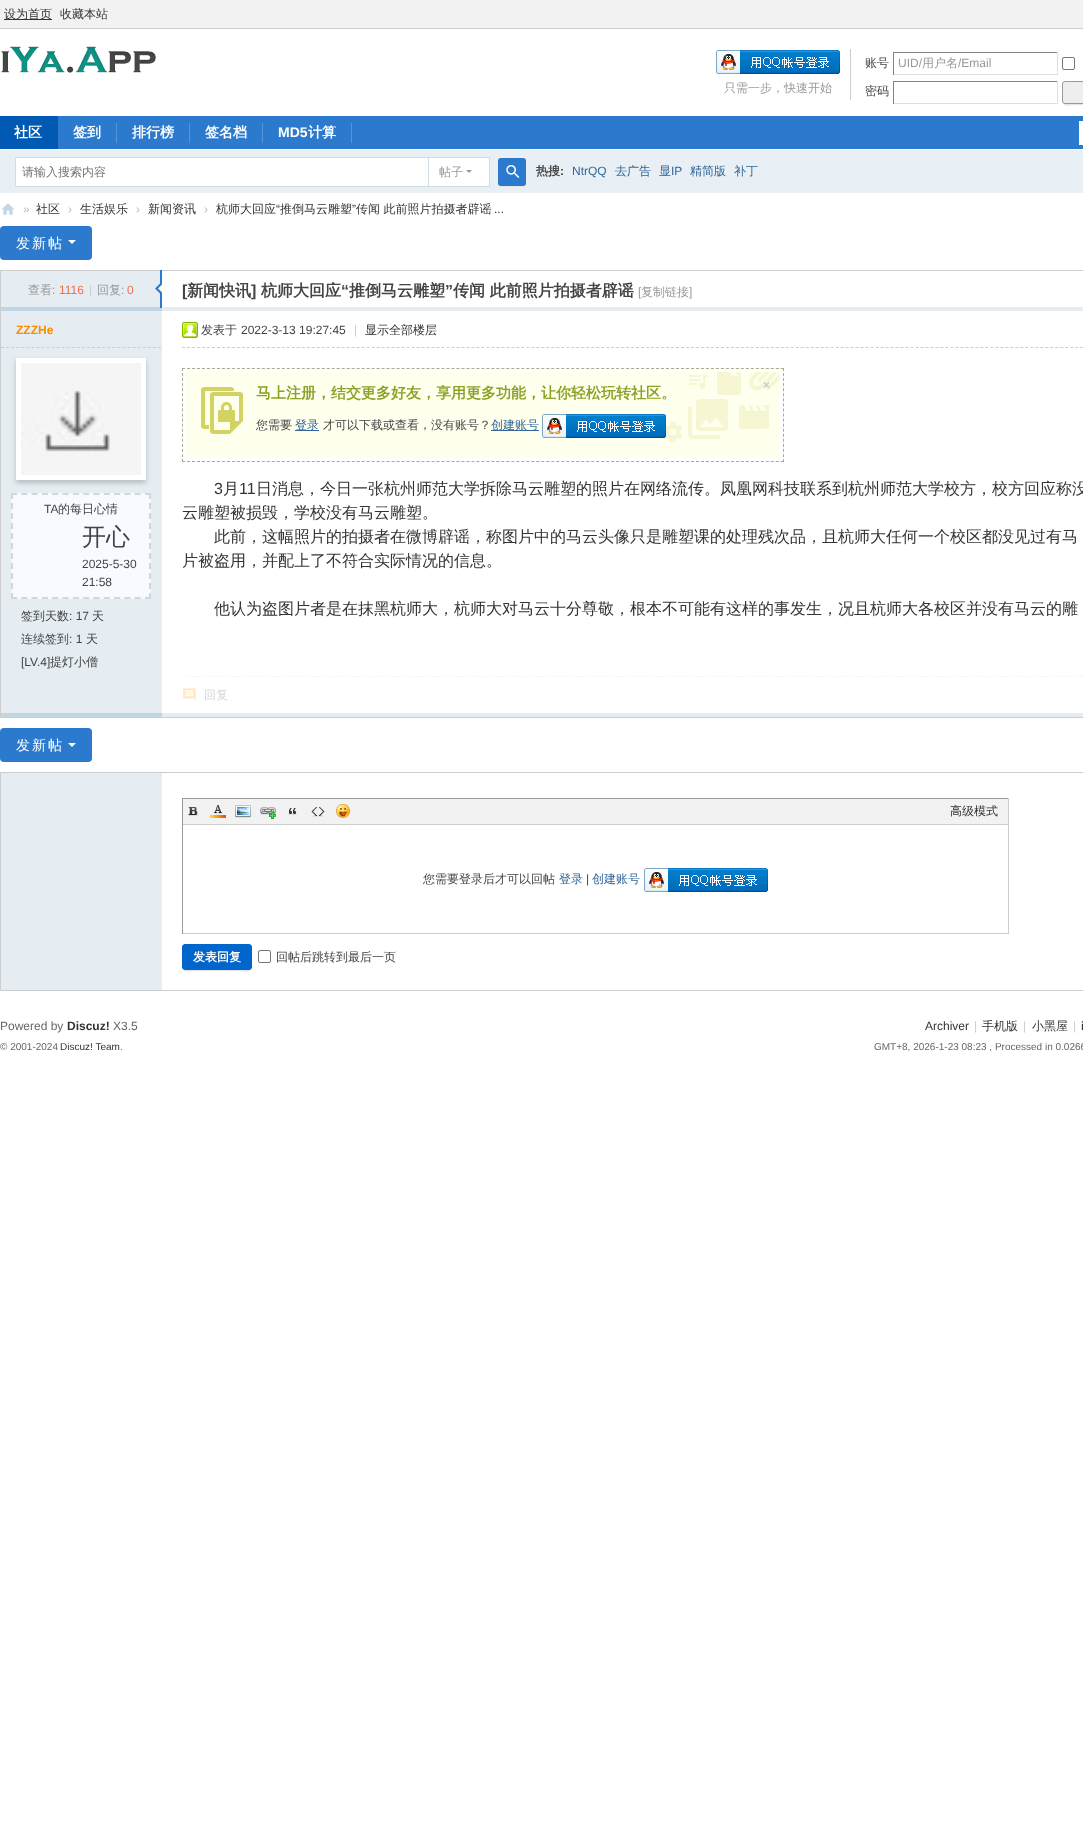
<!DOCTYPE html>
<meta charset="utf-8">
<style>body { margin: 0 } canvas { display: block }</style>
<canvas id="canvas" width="1083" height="1837"></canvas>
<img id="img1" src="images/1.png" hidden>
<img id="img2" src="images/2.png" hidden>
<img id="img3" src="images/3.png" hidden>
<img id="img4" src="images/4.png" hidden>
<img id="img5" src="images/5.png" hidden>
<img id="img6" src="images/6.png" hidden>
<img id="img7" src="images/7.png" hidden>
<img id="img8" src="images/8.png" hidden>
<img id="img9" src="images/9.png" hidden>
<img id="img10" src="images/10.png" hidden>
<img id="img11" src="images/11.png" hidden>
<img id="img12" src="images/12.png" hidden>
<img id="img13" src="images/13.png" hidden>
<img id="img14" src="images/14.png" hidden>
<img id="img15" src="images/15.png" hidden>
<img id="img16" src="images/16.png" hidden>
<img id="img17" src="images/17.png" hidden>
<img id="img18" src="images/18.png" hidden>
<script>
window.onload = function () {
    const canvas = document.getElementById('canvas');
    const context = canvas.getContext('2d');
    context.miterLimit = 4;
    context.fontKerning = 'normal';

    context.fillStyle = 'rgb(255, 255, 255)';
    context.fillRect(0, 0, 1083, 1837);
    context.fillStyle = 'rgb(242, 242, 242)';
    context.fillRect(0, 0, 1083, 28);
    context.fillStyle = 'rgb(205, 205, 205)';
    context.fillRect(0, 28, 1083, 1);
    context.fillStyle = 'rgb(51, 51, 51)';
    context.fillRect(4, 19, 48, 1);
    context.drawImage(document.getElementById('img1'), 1, 46, 155, 27);
    context.fillStyle = 'rgb(205, 205, 205)';
    context.fillRect(850, 49, 1, 51);
    context.drawImage(document.getElementById('img2'), 716, 50, 124, 24);
    context.fillStyle = 'rgb(132, 132, 132)';
    context.fillRect(893, 52, 165, 1);
    context.fillStyle = 'rgb(224, 224, 224)';
    context.fillRect(1057, 52, 1, 23);
    context.fillRect(893, 74, 165, 1);
    context.fillStyle = 'rgb(132, 132, 132)';
    context.fillRect(893, 52, 1, 23);
    context.beginPath();
    context.roundRect(1062.5, 57.5, 12, 12, 1.5);
    context.strokeStyle = 'rgb(118, 118, 118)';
    context.stroke();
    context.fillRect(893, 81, 165, 1);
    context.fillStyle = 'rgb(224, 224, 224)';
    context.fillRect(1057, 81, 1, 23);
    context.fillRect(893, 103, 165, 1);
    context.fillStyle = 'rgb(132, 132, 132)';
    context.fillRect(893, 81, 1, 23);
    context.fillStyle = 'rgb(229, 229, 229)';
    context.beginPath();
    context.moveTo(1062, 101);
    context.bezierCurveTo(1062, 108, 1072, 105, 1076, 105);
    context.lineTo(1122, 105);
    context.bezierCurveTo(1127, 105, 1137, 108, 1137, 101);
    context.bezierCurveTo(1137, 103, 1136, 104, 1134, 104);
    context.lineTo(1065, 104);
    context.bezierCurveTo(1063, 104, 1062, 103, 1062, 101);
    context.closePath();
    context.fill();
    context.fillStyle = 'rgb(238, 238, 238)';
    context.beginPath();
    context.roundRect(1062.5, 81.5, 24, 22, 2.5);
    context.fill();
    context.strokeStyle = 'rgb(153, 153, 153)';
    context.stroke();
    context.fillStyle = 'rgb(43, 122, 205)';
    context.fillRect(58, 116, 1025, 33);
    context.fillStyle = 'rgb(0, 90, 180)';
    context.fillRect(0, 116, 58, 33);
    context.fillStyle = 'rgb(85, 149, 215)';
    context.fillRect(116, 123, 1, 20);
    context.fillRect(189, 123, 1, 20);
    context.fillRect(262, 123, 1, 20);
    context.fillRect(351, 123, 1, 20);
    context.fillStyle = 'rgb(255, 255, 255)';
    context.fillRect(1079, 121, 4, 24);
    context.fillStyle = 'rgb(232, 239, 245)';
    context.fillRect(0, 150, 1083, 43);
    context.fillStyle = 'rgb(207, 222, 227)';
    context.fillRect(427, 157, 63, 1);
    context.fillRect(489, 157, 1, 30);
    context.fillRect(427, 186, 63, 1);
    context.fillStyle = 'rgb(255, 255, 255)';
    context.beginPath();
    context.rect(15.5, 157.5, 413, 29);
    context.fill();
    context.strokeStyle = 'rgb(207, 222, 227)';
    context.stroke();
    context.fillRect(429, 158, 60, 28);
    context.fillStyle = 'rgb(153, 153, 153)';
    context.beginPath();
    context.moveTo(466, 170);
    context.lineTo(472, 170);
    context.lineTo(469, 173);
    context.closePath();
    context.fill();
    context.fillStyle = 'rgb(229, 229, 229)';
    context.beginPath();
    context.moveTo(498, 183);
    context.bezierCurveTo(498, 187.5, 501, 187, 504.5, 187);
    context.lineTo(519.5, 187);
    context.bezierCurveTo(523, 187, 526, 187.5, 526, 183);
    context.bezierCurveTo(526, 184.5, 524.5, 186, 523, 186);
    context.lineTo(501, 186);
    context.bezierCurveTo(499.5, 186, 498, 184.5, 498, 183);
    context.closePath();
    context.fill();
    context.fillStyle = 'rgb(43, 122, 205)';
    context.beginPath();
    context.roundRect(498, 158, 28, 28, 3);
    context.fill();
    context.drawImage(document.getElementById('img3'), 506, 165, 14, 13);
    context.drawImage(document.getElementById('img4'), 1, 203, 14, 12);
    context.beginPath();
    context.roundRect(0, 226, 92, 34, 4);
    context.fill();
    context.fillStyle = 'rgb(255, 255, 255)';
    context.beginPath();
    context.moveTo(68, 240);
    context.lineTo(76, 240);
    context.lineTo(72, 244);
    context.closePath();
    context.fill();
    context.strokeStyle = 'rgb(205, 205, 205)';
    context.strokeRect(0.5, 270.5, 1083, 447);
    context.fillStyle = 'rgb(229, 237, 242)';
    context.fillRect(1, 271, 161, 36);
    context.fillStyle = 'rgb(194, 213, 227)';
    context.fillRect(1, 307, 161, 4);
    context.drawImage(document.getElementById('img5'), 155, 270, 7, 38);
    context.fillStyle = 'rgb(229, 237, 242)';
    context.fillRect(162, 307, 921, 4);
    context.fillRect(1, 311, 161, 402);
    context.beginPath();
    context.moveTo(1, 347.5);
    context.lineTo(161, 347.5);
    context.setLineDash([3, 2.06]);
    context.stroke();
    context.fillStyle = 'rgba(0, 0, 0, 0.2)';
    context.filter = 'blur(2.5px)';
    context.beginPath();
    context.rect(16, 361, 130, 122);
    context.fill();
    context.filter = 'none';
    context.fillStyle = 'rgb(255, 255, 255)';
    context.fillRect(16, 358, 130, 122);
    context.drawImage(document.getElementById('img6'), 21, 363, 120, 112);
    context.fillStyle = 'rgb(247, 250, 255)';
    context.fillRect(11, 493, 140, 106);
    context.beginPath();
    context.moveTo(11, 494);
    context.lineTo(151, 494);
    context.strokeStyle = 'rgb(209, 216, 216)';
    context.lineWidth = 2;
    context.setLineDash([6, 4.31]);
    context.stroke();
    context.beginPath();
    context.moveTo(150, 493);
    context.lineTo(150, 599);
    context.setLineDash([6, 4]);
    context.stroke();
    context.beginPath();
    context.moveTo(11, 598);
    context.lineTo(151, 598);
    context.setLineDash([6, 4.31]);
    context.stroke();
    context.beginPath();
    context.moveTo(12, 493);
    context.lineTo(12, 599);
    context.setLineDash([6, 4]);
    context.stroke();
    context.beginPath();
    context.moveTo(182, 347.5);
    context.lineTo(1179, 347.5);
    context.strokeStyle = 'rgb(205, 205, 205)';
    context.lineWidth = 1;
    context.setLineDash([3, 1.99]);
    context.stroke();
    context.drawImage(document.getElementById('img7'), 182, 322, 16, 16);
    context.fillStyle = 'rgb(255, 255, 238)';
    context.fillRect(182, 368, 602, 94);
    context.drawImage(document.getElementById('img8'), 664, 372, 116, 70);
    context.beginPath();
    context.moveTo(182, 368.5);
    context.lineTo(784, 368.5);
    context.strokeStyle = 'rgb(170, 170, 146)';
    context.stroke();
    context.beginPath();
    context.moveTo(783.5, 368);
    context.lineTo(783.5, 462);
    context.setLineDash([3, 2.06]);
    context.stroke();
    context.beginPath();
    context.moveTo(182, 461.5);
    context.lineTo(784, 461.5);
    context.setLineDash([3, 1.99]);
    context.stroke();
    context.beginPath();
    context.moveTo(182.5, 368);
    context.lineTo(182.5, 462);
    context.setLineDash([3, 2.06]);
    context.stroke();
    context.drawImage(document.getElementById('img9'), 201, 387, 42, 47);
    context.strokeStyle = 'rgb(255, 255, 255)';
    context.lineWidth = 3;
    context.setLineDash([]);
    context.strokeRect(184.5, 370.5, 597, 89);
    context.fillStyle = 'rgb(51, 102, 153)';
    context.fillRect(295, 430, 24, 1);
    context.fillRect(491, 430, 48, 1);
    context.drawImage(document.getElementById('img10'), 542, 414, 124, 24);
    context.beginPath();
    context.moveTo(182, 676.5);
    context.lineTo(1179, 676.5);
    context.strokeStyle = 'rgb(245, 245, 245)';
    context.lineWidth = 1;
    context.setLineDash([3, 1.99]);
    context.stroke();
    context.drawImage(document.getElementById('img11'), 183, 688, 13, 13);
    context.fillStyle = 'rgb(194, 213, 227)';
    context.fillRect(161, 713, 1, 5);
    context.fillRect(1, 713, 161, 4);
    context.fillStyle = 'rgb(229, 237, 242)';
    context.fillRect(162, 713, 921, 4);
    context.fillStyle = 'rgb(43, 122, 205)';
    context.beginPath();
    context.roundRect(0, 728, 92, 34, 4);
    context.fill();
    context.fillStyle = 'rgb(255, 255, 255)';
    context.beginPath();
    context.moveTo(68, 743);
    context.lineTo(76, 743);
    context.lineTo(72, 747);
    context.closePath();
    context.fill();
    context.strokeStyle = 'rgb(205, 205, 205)';
    context.setLineDash([]);
    context.strokeRect(0.5, 772.5, 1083, 218);
    context.fillStyle = 'rgb(194, 213, 227)';
    context.fillRect(161, 990, 1, 1);
    context.fillStyle = 'rgb(229, 237, 242)';
    context.fillRect(1, 773, 161, 217);
    context.fillStyle = 'rgb(153, 153, 153)';
    context.fillRect(182, 798, 827, 1);
    context.fillStyle = 'rgb(204, 204, 204)';
    context.fillRect(1008, 798, 1, 136);
    context.fillRect(182, 933, 827, 1);
    context.fillStyle = 'rgb(153, 153, 153)';
    context.fillRect(182, 798, 1, 136);
    context.fillStyle = 'rgb(242, 242, 242)';
    context.fillRect(183, 799, 825, 25);
    context.fillStyle = 'rgb(205, 205, 205)';
    context.fillRect(183, 824, 825, 1);
    context.drawImage(document.getElementById('img12'), 188, 807, 11, 9);
    context.drawImage(document.getElementById('img13'), 210, 805, 16, 13);
    context.drawImage(document.getElementById('img14'), 235, 805, 16, 13);
    context.drawImage(document.getElementById('img15'), 260, 807, 17, 12);
    context.drawImage(document.getElementById('img16'), 288, 808, 9, 7);
    context.drawImage(document.getElementById('img17'), 311, 807, 14, 10);
    context.drawImage(document.getElementById('img18'), 335, 804, 15, 14);
    context.drawImage(document.getElementById('img2'), 644, 868, 124, 24);
    context.fillStyle = 'rgb(229, 229, 229)';
    context.beginPath();
    context.moveTo(182, 967);
    context.bezierCurveTo(182, 974, 191, 971, 196, 971);
    context.lineTo(238, 971);
    context.bezierCurveTo(243, 971, 252, 974, 252, 967);
    context.bezierCurveTo(252, 969, 251, 970, 249, 970);
    context.lineTo(185, 970);
    context.bezierCurveTo(183, 970, 182, 969, 182, 967);
    context.closePath();
    context.fill();
    context.fillStyle = 'rgb(0, 102, 204)';
    context.beginPath();
    context.roundRect(182.5, 944.5, 69, 25, 2.5);
    context.fill();
    context.strokeStyle = 'rgb(0, 102, 204)';
    context.stroke();
    context.beginPath();
    context.roundRect(258.5, 950.5, 12, 12, 1.5);
    context.strokeStyle = 'rgb(118, 118, 118)';
    context.stroke();
    context.font = '500 12px WenQuanYi Zen Hei';
    context.fillStyle = 'rgb(51, 51, 51)';
    context.fillText('设为首页', 4, 18);
    context.fillText('收藏本站', 60, 18);
    context.fillStyle = 'rgb(153, 153, 153)';
    context.fillText('只需一步，快速开始', 724, 92);
    context.fillStyle = 'rgb(68, 68, 68)';
    context.fillText('账号', 865, 67);
    context.font = '12px Liberation Sans';
    context.fillStyle = 'rgb(153, 153, 153)';
    context.fillText('UID/', 898, 67);
    context.font = '500 12px WenQuanYi Zen Hei';
    context.fillText('用户名', 922, 67);
    context.font = '12px Liberation Sans';
    context.fillText('/Email', 958, 67);
    context.font = '500 12px WenQuanYi Zen Hei';
    context.fillStyle = 'rgb(68, 68, 68)';
    context.fillText('密码', 865, 95);
    context.font = 'bold 14px WenQuanYi Zen Hei';
    context.fillStyle = 'rgb(255, 255, 255)';
    context.fillText('社区', 14, 137);
    context.fillText('签到', 73, 137);
    context.fillText('排行榜', 132, 137);
    context.fillText('签名档', 205, 137);
    context.font = 'bold 14px Liberation Sans';
    context.fillText('MD5', 278, 137);
    context.font = 'bold 14px WenQuanYi Zen Hei';
    context.fillText('计算', 308, 137);
    context.font = '500 12px WenQuanYi Zen Hei';
    context.fillStyle = 'rgb(117, 117, 117)';
    context.fillText('请输入搜索内容', 22, 176);
    context.fillStyle = 'rgb(153, 153, 153)';
    context.fillText('帖子', 439, 176);
    context.font = 'bold 12px WenQuanYi Zen Hei';
    context.fillStyle = 'rgb(68, 68, 68)';
    context.fillText('热搜', 536, 175);
    context.font = 'bold 12px Liberation Sans';
    context.fillText(':', 560, 175);
    context.font = '12px Liberation Sans';
    context.fillStyle = 'rgb(51, 102, 153)';
    context.fillText('NtrQQ', 572, 175);
    context.font = '500 12px WenQuanYi Zen Hei';
    context.fillText('去广告', 615, 175);
    context.fillText('显', 659, 175);
    context.font = '12px Liberation Sans';
    context.fillText('IP', 671, 175);
    context.font = '500 12px WenQuanYi Zen Hei';
    context.fillText('精简版', 690, 175);
    context.fillText('补丁', 734, 175);
    context.font = '12px Liberation Sans';
    context.fillStyle = 'rgb(189, 189, 189)';
    context.fillText('»', 23, 213);
    context.font = '500 12px WenQuanYi Zen Hei';
    context.fillStyle = 'rgb(51, 51, 51)';
    context.fillText('社区', 36, 213);
    context.font = '12px Liberation Sans';
    context.fillStyle = 'rgb(189, 189, 189)';
    context.fillText('›', 68, 213);
    context.font = '500 12px WenQuanYi Zen Hei';
    context.fillStyle = 'rgb(51, 51, 51)';
    context.fillText('生活娱乐', 80, 213);
    context.font = '12px Liberation Sans';
    context.fillStyle = 'rgb(189, 189, 189)';
    context.fillText('›', 136, 213);
    context.font = '500 12px WenQuanYi Zen Hei';
    context.fillStyle = 'rgb(51, 51, 51)';
    context.fillText('新闻资讯', 148, 213);
    context.font = '12px Liberation Sans';
    context.fillStyle = 'rgb(189, 189, 189)';
    context.fillText('›', 204, 213);
    context.font = '500 12px WenQuanYi Zen Hei';
    context.fillStyle = 'rgb(51, 51, 51)';
    context.fillText('杭师大回应', 216, 213);
    context.font = '12px Liberation Sans';
    context.fillText('“', 276, 213);
    context.font = '500 12px WenQuanYi Zen Hei';
    context.fillText('推倒马云雕塑', 280, 213);
    context.font = '12px Liberation Sans';
    context.fillText('”', 352, 213);
    context.font = '500 12px WenQuanYi Zen Hei';
    context.fillText('传闻 此前照片拍摄者辟谣', 356, 213);
    context.font = '12px Liberation Sans';
    context.fillText('...', 494, 213);
    context.letterSpacing = '2px';
    context.font = '500 14px WenQuanYi Zen Hei';
    context.fillStyle = 'rgb(255, 255, 255)';
    context.fillText('发新帖', 16, 248);
    context.letterSpacing = '0px';
    context.font = '500 12px WenQuanYi Zen Hei';
    context.fillStyle = 'rgb(153, 153, 153)';
    context.fillText('查看', 28, 294);
    context.font = '12px Liberation Sans';
    context.fillText(':', 52, 294);
    context.fillStyle = 'rgb(242, 108, 79)';
    context.fillText('1116', 59, 294);
    context.fillStyle = 'rgb(204, 204, 204)';
    context.fillText('|', 89, 294);
    context.font = '500 12px WenQuanYi Zen Hei';
    context.fillStyle = 'rgb(153, 153, 153)';
    context.fillText('回复', 97, 294);
    context.font = '12px Liberation Sans';
    context.fillText(':', 121, 294);
    context.fillStyle = 'rgb(242, 108, 79)';
    context.fillText('0', 127, 294);
    context.font = 'bold 16px Liberation Sans';
    context.fillStyle = 'rgb(68, 68, 68)';
    context.fillText('[', 182, 296);
    context.font = 'bold 16px WenQuanYi Zen Hei';
    context.fillText('新闻快讯', 187, 296);
    context.font = 'bold 16px Liberation Sans';
    context.fillText(']', 251, 296);
    context.font = 'bold 16px WenQuanYi Zen Hei';
    context.fillText('杭师大回应', 261, 296);
    context.font = 'bold 16px Liberation Sans';
    context.fillText('“', 341, 296);
    context.font = 'bold 16px WenQuanYi Zen Hei';
    context.fillText('推倒马云雕塑', 349, 296);
    context.font = 'bold 16px Liberation Sans';
    context.fillText('”', 445, 296);
    context.font = 'bold 16px WenQuanYi Zen Hei';
    context.fillText('传闻 此前照片拍摄者辟谣', 453, 296);
    context.font = '12px Liberation Sans';
    context.fillStyle = 'rgb(153, 153, 153)';
    context.fillText('[', 638, 296);
    context.font = '500 12px WenQuanYi Zen Hei';
    context.fillText('复制链接', 641, 296);
    context.font = '12px Liberation Sans';
    context.fillText(']', 689, 296);
    context.font = 'bold 12px Liberation Sans';
    context.fillStyle = 'rgb(251, 140, 0)';
    context.fillText('ZZZHe', 16, 334);
    context.font = '12px Liberation Sans';
    context.fillStyle = 'rgb(68, 68, 68)';
    context.fillText('TA', 44, 513);
    context.font = '500 12px WenQuanYi Zen Hei';
    context.fillText('的每日心情', 58, 513);
    context.font = '500 24px WenQuanYi Zen Hei';
    context.fillText('开心', 82, 545);
    context.font = '12px Liberation Sans';
    context.fillText('2025-5-30', 82, 568);
    context.fillText('21:58', 82, 586);
    context.font = '500 12px WenQuanYi Zen Hei';
    context.fillText('签到天数', 21, 620);
    context.font = '12px Liberation Sans';
    context.fillText(': 17', 69, 620);
    context.font = '500 12px WenQuanYi Zen Hei';
    context.fillText('天', 92, 620);
    context.fillText('连续签到', 21, 643);
    context.font = '12px Liberation Sans';
    context.fillText(': 1', 69, 643);
    context.font = '500 12px WenQuanYi Zen Hei';
    context.fillText('天', 86, 643);
    context.font = '12px Liberation Sans';
    context.fillText('[LV.4]', 21, 666);
    context.font = '500 12px WenQuanYi Zen Hei';
    context.fillText('提灯小僧', 50, 666);
    context.fillText('发表于', 201, 334);
    context.font = '12px Liberation Sans';
    context.fillText('2022-3-13 19:27:45', 241, 334);
    context.fillStyle = 'rgb(204, 204, 204)';
    context.fillText('|', 354, 334);
    context.font = '500 12px WenQuanYi Zen Hei';
    context.fillStyle = 'rgb(51, 51, 51)';
    context.fillText('显示全部楼层', 365, 334);
    context.font = 'bold 15px WenQuanYi Zen Hei';
    context.fillStyle = 'rgb(140, 162, 38)';
    context.fillText('马上注册，结交更多好友，享用更多功能，让你轻松玩转社区。', 256, 398);
    context.font = '500 12px WenQuanYi Zen Hei';
    context.fillStyle = 'rgb(68, 68, 68)';
    context.fillText('您需要', 256, 429);
    context.fillStyle = 'rgb(51, 102, 153)';
    context.fillText('登录', 295, 429);
    context.fillStyle = 'rgb(68, 68, 68)';
    context.fillText('才可以下载或查看，没有账号？', 323, 429);
    context.fillStyle = 'rgb(51, 102, 153)';
    context.fillText('创建账号', 491, 429);
    context.font = 'bold 12px Liberation Sans';
    context.fillStyle = 'rgb(204, 204, 204)';
    context.fillText('×', 763, 389);
    context.font = '16px Liberation Sans';
    context.fillStyle = 'rgb(51, 51, 51)';
    context.fillText('3', 214, 494);
    context.font = '500 16px WenQuanYi Zen Hei';
    context.fillText('月', 223, 494);
    context.font = '16px Liberation Sans';
    context.fillText('11', 239, 494);
    context.font = '500 16px WenQuanYi Zen Hei';
    context.fillText('日消息，今日一张杭州师范大学拆除马云雕塑的照片在网络流传。凤凰网科技联系到杭州师范大学校方，校方回应称没', 256, 494);
    context.fillText('云雕塑被损毁，学校没有马云雕塑。', 182, 518);
    context.fillText('此前，这幅照片的拍摄者在微博辟谣，称图片中的马云头像只是雕塑课的处理残次品，且杭师大任何一个校区都没见过有马', 214, 542);
    context.fillText('片被盗用，并配上了不符合实际情况的信息。', 182, 566);
    context.fillText('他认为盗图片者是在抹黑杭师大，杭师大对马云十分尊敬，根本不可能有这样的事发生，况且杭师大各校区并没有马云的雕', 214, 614);
    context.font = '500 12px WenQuanYi Zen Hei';
    context.fillStyle = 'rgb(214, 214, 214)';
    context.fillText('回复', 204, 699);
    context.letterSpacing = '2px';
    context.font = '500 14px WenQuanYi Zen Hei';
    context.fillStyle = 'rgb(255, 255, 255)';
    context.fillText('发新帖', 16, 750);
    context.letterSpacing = '0px';
    context.font = '500 12px WenQuanYi Zen Hei';
    context.fillStyle = 'rgb(51, 51, 51)';
    context.fillText('高级模式', 950, 815);
    context.fillStyle = 'rgb(68, 68, 68)';
    context.fillText('您需要登录后才可以回帖', 423, 883);
    context.fillStyle = 'rgb(51, 102, 153)';
    context.fillText('登录', 559, 883);
    context.font = '12px Liberation Sans';
    context.fillStyle = 'rgb(68, 68, 68)';
    context.fillText('|', 586, 883);
    context.font = '500 12px WenQuanYi Zen Hei';
    context.fillStyle = 'rgb(51, 102, 153)';
    context.fillText('创建账号', 592, 883);
    context.font = 'bold 12px WenQuanYi Zen Hei';
    context.fillStyle = 'rgb(255, 255, 255)';
    context.fillText('发表回复', 193, 961);
    context.font = '500 12px WenQuanYi Zen Hei';
    context.fillStyle = 'rgb(68, 68, 68)';
    context.fillText('回帖后跳转到最后一页', 276, 961);
    context.font = '12px Liberation Sans';
    context.fillStyle = 'rgb(102, 102, 102)';
    context.fillText('Powered by', 0, 1030);
    context.font = 'bold 12px Liberation Sans';
    context.fillStyle = 'rgb(51, 51, 51)';
    context.fillText('Discuz!', 67, 1030);
    context.font = '12px Liberation Sans';
    context.fillStyle = 'rgb(102, 102, 102)';
    context.fillText('X3.5', 113, 1030);
    context.font = '10px Liberation Sans';
    context.fillText('© 2001-2024', 0, 1050);
    context.fillStyle = 'rgb(51, 51, 51)';
    context.fillText('Discuz! Team', 60, 1050);
    context.fillStyle = 'rgb(102, 102, 102)';
    context.fillText('.', 120, 1050);
    context.font = '12px Liberation Sans';
    context.fillStyle = 'rgb(51, 51, 51)';
    context.fillText('Archiver', 925, 1030);
    context.fillStyle = 'rgb(204, 204, 204)';
    context.fillText('|', 974, 1030);
    context.font = '500 12px WenQuanYi Zen Hei';
    context.fillStyle = 'rgb(51, 51, 51)';
    context.fillText('手机版', 982, 1030);
    context.font = '12px Liberation Sans';
    context.fillStyle = 'rgb(204, 204, 204)';
    context.fillText('|', 1023, 1030);
    context.font = '500 12px WenQuanYi Zen Hei';
    context.fillStyle = 'rgb(51, 51, 51)';
    context.fillText('小黑屋', 1032, 1030);
    context.font = '12px Liberation Sans';
    context.fillStyle = 'rgb(204, 204, 204)';
    context.fillText('|', 1073, 1030);
    context.font = 'bold 12px Liberation Sans';
    context.fillStyle = 'rgb(51, 51, 51)';
    context.fillText('i', 1081, 1030);
    context.font = '10px Liberation Sans';
    context.fillStyle = 'rgb(102, 102, 102)';
    context.fillText('GMT+8, 2026-1-23 08:23 , Processed in 0.0266', 874, 1050);
};
</script>
